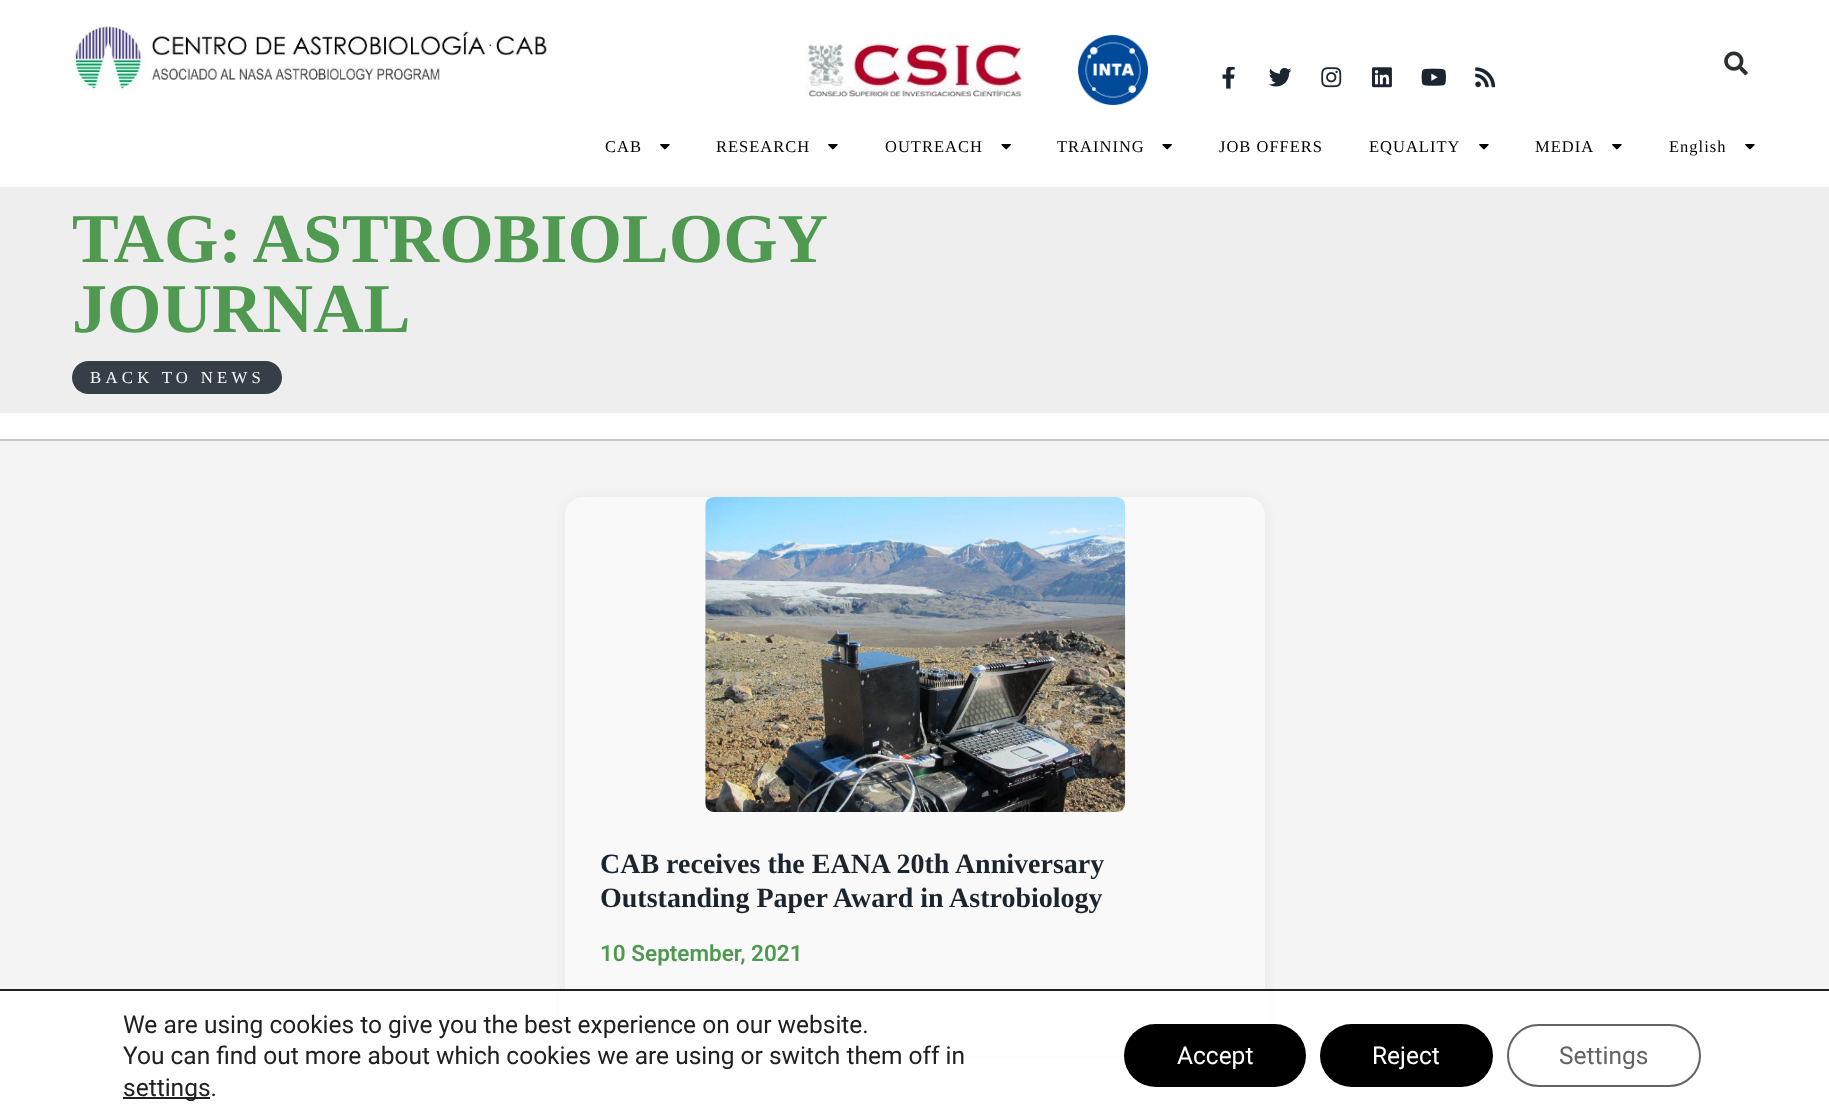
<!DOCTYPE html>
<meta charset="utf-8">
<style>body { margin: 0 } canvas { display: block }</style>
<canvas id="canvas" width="1829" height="1119"></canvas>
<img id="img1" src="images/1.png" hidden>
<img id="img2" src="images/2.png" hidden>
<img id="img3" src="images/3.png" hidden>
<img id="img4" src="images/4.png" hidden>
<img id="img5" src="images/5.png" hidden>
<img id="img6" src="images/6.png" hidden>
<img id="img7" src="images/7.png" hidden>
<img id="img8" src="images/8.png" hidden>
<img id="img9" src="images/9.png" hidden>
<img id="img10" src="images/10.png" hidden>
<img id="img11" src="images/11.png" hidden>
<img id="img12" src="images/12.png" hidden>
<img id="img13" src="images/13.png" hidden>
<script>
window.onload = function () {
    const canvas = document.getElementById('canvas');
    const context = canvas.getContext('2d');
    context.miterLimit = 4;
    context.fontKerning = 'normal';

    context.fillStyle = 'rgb(255, 255, 255)';
    context.fillRect(0, 0, 1829, 1119);
    context.drawImage(document.getElementById('img1'), 74, 26, 473, 65);
    context.drawImage(document.getElementById('img2'), 805, 43, 219, 54);
    context.drawImage(document.getElementById('img3'), 1078, 35, 70, 70);
    context.drawImage(document.getElementById('img4'), 1222, 67, 13, 22);
    context.drawImage(document.getElementById('img5'), 1269, 68, 23, 19);
    context.drawImage(document.getElementById('img6'), 1321, 67, 21, 21);
    context.drawImage(document.getElementById('img7'), 1372, 67, 20, 21);
    context.drawImage(document.getElementById('img8'), 1421, 68, 25, 18);
    context.drawImage(document.getElementById('img9'), 1475, 67, 21, 21);
    context.drawImage(document.getElementById('img10'), 1724, 51, 24, 25);
    context.drawImage(document.getElementById('img11'), 660, 144, 10, 6);
    context.drawImage(document.getElementById('img11'), 828, 144, 10, 6);
    context.drawImage(document.getElementById('img12'), 1001, 144, 10, 6);
    context.drawImage(document.getElementById('img12'), 1162, 144, 10, 6);
    context.drawImage(document.getElementById('img11'), 1479, 144, 10, 6);
    context.drawImage(document.getElementById('img11'), 1612, 144, 10, 6);
    context.drawImage(document.getElementById('img11'), 1745, 144, 10, 6);
    context.fillStyle = 'rgb(238, 238, 238)';
    context.fillRect(0, 187, 1829, 226);
    context.fillStyle = 'rgb(54, 63, 72)';
    context.beginPath();
    context.roundRect(72, 361, 210, 33, 16.5);
    context.fill();
    context.fillStyle = 'rgb(199, 199, 199)';
    context.fillRect(0, 439, 1829, 2);
    context.fillStyle = 'rgb(244, 244, 244)';
    context.fillRect(0, 441, 1829, 548);
    context.fillStyle = 'rgba(220, 220, 220, 0.5)';
    context.filter = 'blur(6px)';
    context.beginPath();
    context.roundRect(565, 497, 700, 553, 18);
    context.fill();
    context.filter = 'none';
    context.fillStyle = 'rgb(249, 249, 249)';
    context.beginPath();
    context.roundRect(565, 497, 700, 553, 18);
    context.fill();
    context.drawImage(document.getElementById('img13'), 705, 497, 421, 315);
    context.fillStyle = 'rgb(255, 255, 255)';
    context.fillRect(559, 991, 712, 65);
    context.fillStyle = 'rgb(32, 32, 32)';
    context.fillRect(0, 989, 1829, 2);
    context.fillRect(123, 1097, 87, 2);
    context.fillStyle = 'rgb(0, 0, 0)';
    context.beginPath();
    context.roundRect(1124, 1024, 182, 63, 31.5);
    context.fill();
    context.beginPath();
    context.roundRect(1320, 1024, 173, 63, 31.5);
    context.fill();
    context.beginPath();
    context.roundRect(1508, 1025, 192, 61, 30.5);
    context.strokeStyle = 'rgb(99, 99, 99)';
    context.lineWidth = 2;
    context.stroke();
    context.letterSpacing = '1px';
    context.font = '16.5px Liberation Serif';
    context.fillText('CAB', 605, 152);
    context.fillText('RESEARCH', 716, 152);
    context.fillText('OUTREACH', 885, 152);
    context.fillText('TRAINING', 1057, 152);
    context.fillText('JOB OFFERS', 1219, 152);
    context.fillText('EQUALITY', 1369, 152);
    context.fillText('MEDIA', 1535, 152);
    context.fillText('English', 1669, 152);
    context.letterSpacing = '0px';
    context.wordSpacing = '-3px';
    context.font = 'bold 70px Liberation Serif';
    context.fillStyle = 'rgb(80, 153, 81)';
    context.fillText('TAG: ASTROBIOLOGY', 72, 262);
    context.wordSpacing = '0px';
    context.fillText('JOURNAL', 72, 332);
    context.letterSpacing = '4.25px';
    context.font = '16.75px Liberation Serif';
    context.fillStyle = 'rgb(249, 249, 249)';
    context.fillText('BACK TO NEWS', 90, 383);
    context.letterSpacing = '0px';
    context.font = 'bold 28px Liberation Serif';
    context.fillStyle = 'rgb(27, 37, 47)';
    context.fillText('CAB receives the EANA 20th Anniversary', 600, 873);
    context.fillText('Outstanding Paper Award in Astrobiology', 600, 907);
    context.font = '600 22.5px Roboto';
    context.fillStyle = 'rgb(80, 153, 81)';
    context.fillText('10 September, 2021', 600, 961);
    context.font = '24.5px Roboto';
    context.fillStyle = 'rgb(32, 32, 32)';
    context.fillText('We are using cookies to give you the best experience on our website.', 123, 1033);
    context.fillText('You can find out more about which cookies we are using or switch them off in', 123, 1064);
    context.fillText('settings.', 123, 1096);
    context.fillStyle = 'rgb(255, 255, 255)';
    context.fillText('Accept', 1177, 1064);
    context.fillText('Reject', 1372, 1064);
    context.fillStyle = 'rgb(99, 99, 99)';
    context.fillText('Settings', 1559, 1064);
};
</script>
